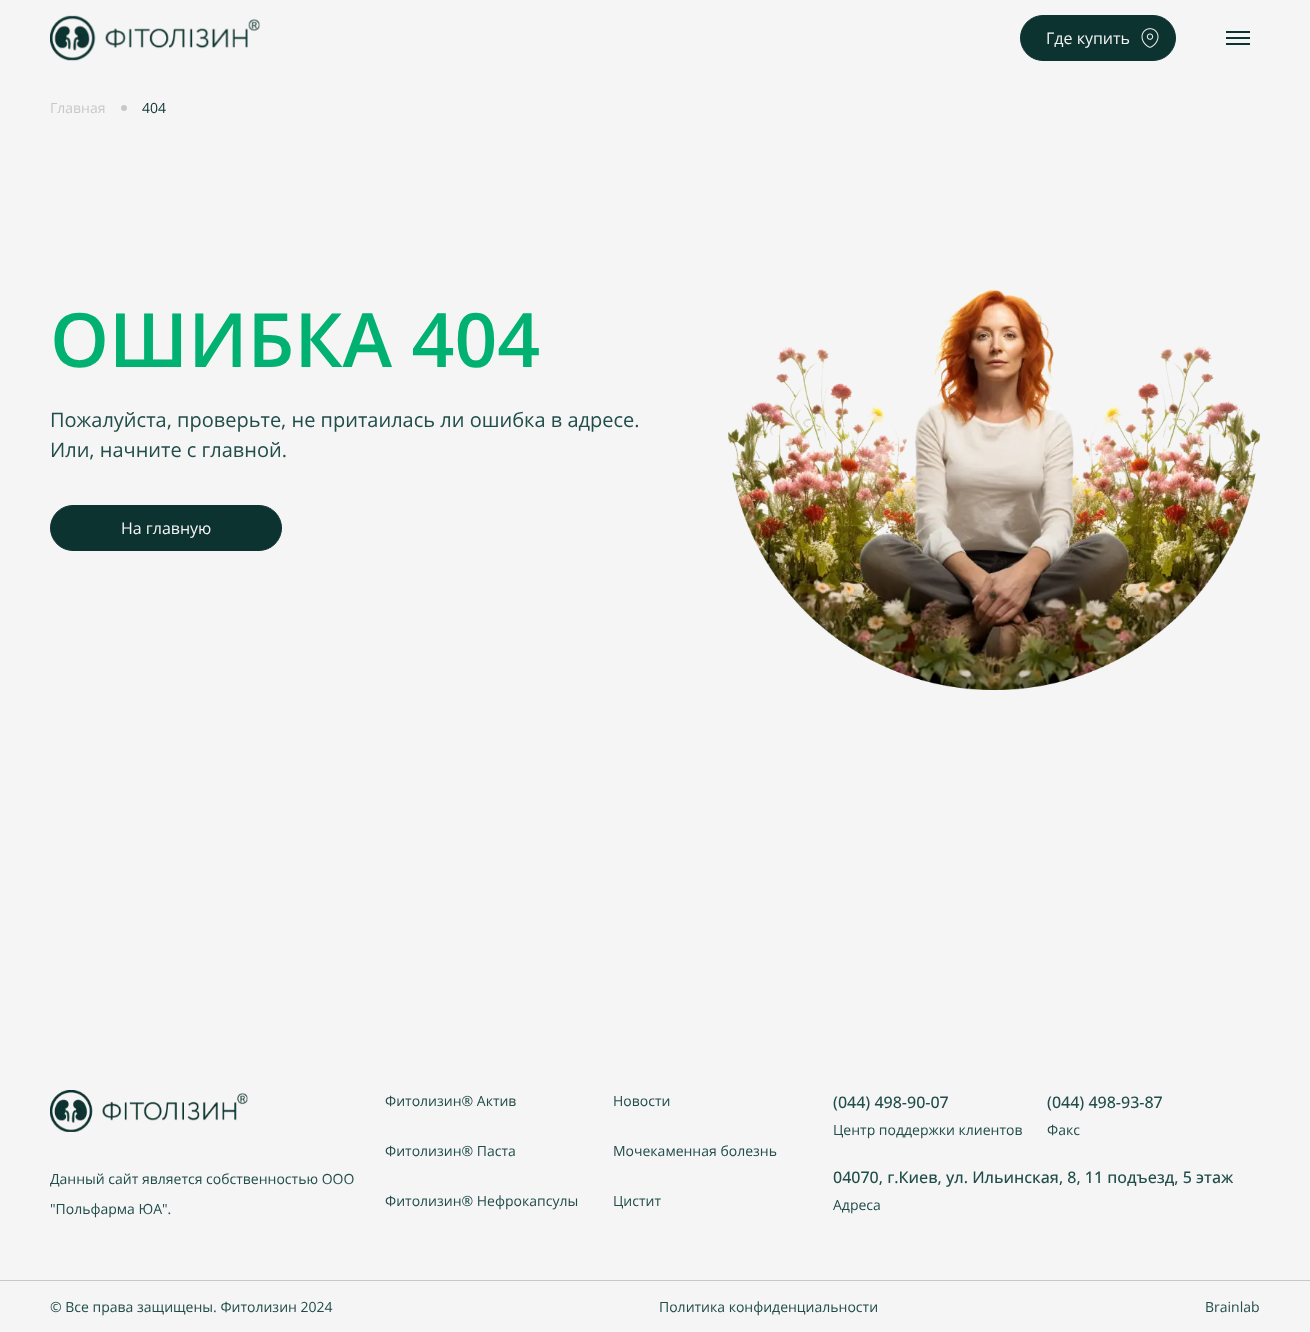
<!DOCTYPE html>
<meta charset="utf-8">
<style>body { margin: 0 } canvas { display: block }</style>
<canvas id="canvas" width="1310" height="1332"></canvas>
<img id="img1" src="images/1.png" hidden>
<img id="img2" src="images/2.png" hidden>
<img id="img3" src="images/3.png" hidden>
<img id="img4" src="images/4.png" hidden>
<script>
window.onload = function () {
    const canvas = document.getElementById('canvas');
    const context = canvas.getContext('2d');
    context.miterLimit = 4;
    context.fontKerning = 'normal';

    context.fillStyle = 'rgb(245, 245, 245)';
    context.fillRect(0, 0, 1310, 1332);
    context.drawImage(document.getElementById('img1'), 50, 15, 210, 46);
    context.fillStyle = 'rgb(13, 51, 49)';
    context.beginPath();
    context.roundRect(1020.5, 15.5, 155, 45, 22.5);
    context.fill();
    context.strokeStyle = 'rgb(13, 51, 49)';
    context.stroke();
    context.drawImage(document.getElementById('img2'), 1141, 28, 18, 20);
    context.fillRect(1226, 31, 24, 2);
    context.fillRect(1226, 37, 24, 2);
    context.fillRect(1226, 43, 24, 2);
    context.fillStyle = 'rgb(200, 200, 197)';
    context.beginPath();
    context.arc(124, 108, 3, 0, 2 * Math.PI);
    context.fill();
    context.fillStyle = 'rgb(13, 51, 49)';
    context.beginPath();
    context.roundRect(50.5, 505.5, 231, 45, 22.5);
    context.fill();
    context.stroke();
    context.drawImage(document.getElementById('img3'), 728, 289, 532, 401);
    context.drawImage(document.getElementById('img4'), 50, 1090, 198, 42);
    context.fillStyle = 'rgb(200, 200, 197)';
    context.fillRect(0, 1280, 1310, 1);
    context.font = '16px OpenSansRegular';
    context.fillStyle = 'rgb(245, 245, 245)';
    context.fillText('Где купить', 1046, 44);
    context.font = '14px OpenSansRegular';
    context.fillStyle = 'rgb(200, 200, 197)';
    context.fillText('Главная', 50, 113);
    context.fillStyle = 'rgb(13, 51, 49)';
    context.fillText('404', 142, 113);
    context.font = '600 75px Open Sans';
    context.fillStyle = 'rgb(0, 177, 114)';
    context.fillText('ОШИБКА 404', 50, 367);
    context.font = '20px OpenSansRegular';
    context.fillStyle = 'rgb(33, 77, 74)';
    context.fillText('Пожалуйста, проверьте, не притаилась ли ошибка в адресе.', 50, 427);
    context.fillText('Или, начните с главной.', 50, 457);
    context.font = '16px OpenSansRegular';
    context.fillStyle = 'rgb(245, 245, 245)';
    context.fillText('На главную', 121, 534);
    context.font = '14px OpenSansRegular';
    context.fillStyle = 'rgb(33, 77, 74)';
    context.fillText('Данный сайт является собственностью ООО', 50, 1184);
    context.fillText('"Польфарма ЮА".', 50, 1214);
    context.fillText('Фитолизин® Актив', 385, 1106);
    context.fillText('Новости', 613, 1106);
    context.fillText('Фитолизин® Паста', 385, 1156);
    context.fillText('Мочекаменная болезнь', 613, 1156);
    context.fillText('Фитолизин® Нефрокапсулы', 385, 1206);
    context.fillText('Цистит', 613, 1206);
    context.font = '500 16px Open Sans';
    context.fillText('(044) 498-90-07', 833, 1108);
    context.font = '14px OpenSansRegular';
    context.fillText('Центр поддержки клиентов', 833, 1135);
    context.font = '500 16px Open Sans';
    context.fillText('(044) 498-93-87', 1047, 1108);
    context.font = '14px OpenSansRegular';
    context.fillText('Факс', 1047, 1135);
    context.font = '500 16px Open Sans';
    context.fillText('04070, г.Киев, ул. Ильинская, 8, 11 подъезд, 5 этаж', 833, 1183);
    context.font = '14px OpenSansRegular';
    context.fillText('Адресa', 833, 1210);
    context.fillText('© Все права защищены. Фитолизин 2024', 50, 1312);
    context.fillText('Политика конфиденциальности', 659, 1312);
    context.fillText('Brainlab', 1205, 1312);
};
</script>
